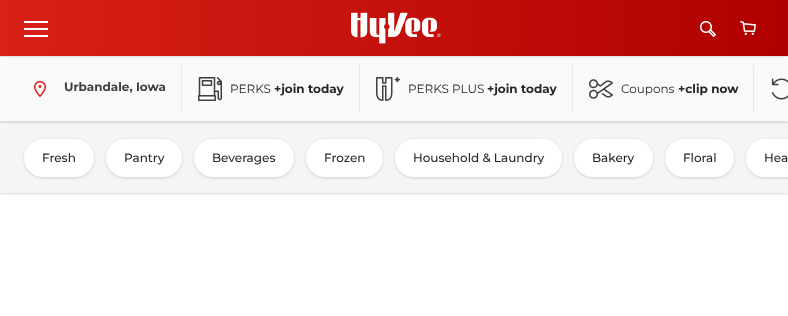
<!DOCTYPE html>
<meta charset="utf-8">
<style>body { margin: 0 } canvas { display: block }</style>
<canvas id="canvas" width="788" height="316"></canvas>
<img id="img1" src="images/1.png" hidden>
<img id="img2" src="images/2.png" hidden>
<img id="img3" src="images/3.png" hidden>
<img id="img4" src="images/4.png" hidden>
<img id="img5" src="images/5.png" hidden>
<img id="img6" src="images/6.png" hidden>
<img id="img7" src="images/7.png" hidden>
<img id="img8" src="images/8.png" hidden>
<script>
window.onload = function () {
    const canvas = document.getElementById('canvas');
    const context = canvas.getContext('2d');
    context.miterLimit = 4;
    context.fontKerning = 'normal';
    let gradient;

    context.fillStyle = 'rgb(255, 255, 255)';
    context.fillRect(0, 0, 788, 316);
    gradient = context.createLinearGradient(0, 28, 788, 28);
    gradient.addColorStop(0, 'rgb(216, 33, 23)');
    gradient.addColorStop(1, 'rgb(175, 0, 0)');
    context.fillStyle = gradient;
    context.fillRect(0, 0, 788, 56);
    context.save();
    context.beginPath();
    context.rect(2, 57, 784, 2);
    context.clip();
    context.fillStyle = 'rgba(0, 0, 0, 0.2)';
    context.filter = 'blur(2px)';
    context.beginPath();
    context.rect(2, 4, 784, 52);
    context.fill();
    context.filter = 'none';
    context.restore();
    context.fillStyle = 'rgb(255, 255, 255)';
    context.fillRect(24, 28, 24, 2);
    context.fillRect(24, 21, 24, 2);
    context.fillRect(24, 35, 24, 2);
    context.drawImage(document.getElementById('img1'), 351, 12, 90, 32);
    context.drawImage(document.getElementById('img2'), 700, 21, 16, 16);
    context.drawImage(document.getElementById('img3'), 740, 21, 16, 14);
    context.fillStyle = 'rgb(232, 232, 232)';
    context.fillRect(0, 56, 788, 1);
    context.fillStyle = 'rgba(0, 0, 0, 0.15)';
    context.filter = 'blur(1.5px)';
    context.beginPath();
    context.rect(0, 123, 788, 71);
    context.fill();
    context.filter = 'none';
    context.fillStyle = 'rgb(245, 245, 245)';
    context.fillRect(0, 123, 788, 70);
    context.fillStyle = 'rgb(232, 232, 232)';
    context.fillRect(0, 122, 788, 1);
    context.save();
    context.beginPath();
    context.moveTo(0, 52);
    context.lineTo(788, 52);
    context.lineTo(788, 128);
    context.lineTo(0, 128);
    context.closePath();
    context.moveTo(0, 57);
    context.lineTo(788, 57);
    context.lineTo(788, 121);
    context.lineTo(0, 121);
    context.closePath();
    context.clip('evenodd');
    context.fillStyle = 'rgba(0, 0, 0, 0.15)';
    context.filter = 'blur(1.5px)';
    context.beginPath();
    context.rect(0, 58, 788, 64);
    context.fill();
    context.filter = 'none';
    context.restore();
    context.fillStyle = 'rgba(245, 245, 245, 0.5)';
    context.fillRect(0, 57, 788, 64);
    context.drawImage(document.getElementById('img4'), 34, 81, 12, 16);
    context.fillStyle = 'rgb(232, 232, 232)';
    context.fillRect(181, 65, 1, 48);
    context.drawImage(document.getElementById('img5'), 198, 77, 24, 24);
    context.fillRect(359, 65, 1, 48);
    context.drawImage(document.getElementById('img6'), 376, 77, 24, 24);
    context.fillRect(572, 65, 1, 48);
    context.drawImage(document.getElementById('img7'), 589, 79, 24, 20);
    context.fillRect(753, 65, 1, 48);
    context.drawImage(document.getElementById('img8'), 771, 78, 17, 22);
    context.fillStyle = 'rgba(0, 0, 0, 0.15)';
    context.filter = 'blur(1.5px)';
    context.beginPath();
    context.roundRect(24, 140, 70, 38, 19);
    context.fill();
    context.filter = 'none';
    context.fillStyle = 'rgb(255, 255, 255)';
    context.beginPath();
    context.roundRect(25, 140, 68, 36, 18);
    context.fill();
    context.strokeStyle = 'rgb(255, 255, 255)';
    context.lineWidth = 2;
    context.stroke();
    context.fillStyle = 'rgba(0, 0, 0, 0.15)';
    context.filter = 'blur(1.5px)';
    context.beginPath();
    context.roundRect(106, 140, 76, 38, 19);
    context.fill();
    context.filter = 'none';
    context.fillStyle = 'rgb(255, 255, 255)';
    context.beginPath();
    context.roundRect(107, 140, 74, 36, 18);
    context.fill();
    context.stroke();
    context.fillStyle = 'rgba(0, 0, 0, 0.15)';
    context.filter = 'blur(1.5px)';
    context.beginPath();
    context.roundRect(194, 140, 100, 38, 19);
    context.fill();
    context.filter = 'none';
    context.fillStyle = 'rgb(255, 255, 255)';
    context.beginPath();
    context.roundRect(195, 140, 98, 36, 18);
    context.fill();
    context.stroke();
    context.fillStyle = 'rgba(0, 0, 0, 0.15)';
    context.filter = 'blur(1.5px)';
    context.beginPath();
    context.roundRect(306, 140, 77, 38, 19);
    context.fill();
    context.filter = 'none';
    context.fillStyle = 'rgb(255, 255, 255)';
    context.beginPath();
    context.roundRect(307, 140, 75, 36, 18);
    context.fill();
    context.stroke();
    context.fillStyle = 'rgba(0, 0, 0, 0.15)';
    context.filter = 'blur(1.5px)';
    context.beginPath();
    context.roundRect(395, 140, 167, 38, 19);
    context.fill();
    context.filter = 'none';
    context.fillStyle = 'rgb(255, 255, 255)';
    context.beginPath();
    context.roundRect(396, 140, 165, 36, 18);
    context.fill();
    context.stroke();
    context.fillStyle = 'rgba(0, 0, 0, 0.15)';
    context.filter = 'blur(1.5px)';
    context.beginPath();
    context.roundRect(574, 140, 79, 38, 19);
    context.fill();
    context.filter = 'none';
    context.fillStyle = 'rgb(255, 255, 255)';
    context.beginPath();
    context.roundRect(575, 140, 77, 36, 18);
    context.fill();
    context.stroke();
    context.fillStyle = 'rgba(0, 0, 0, 0.15)';
    context.filter = 'blur(1.5px)';
    context.beginPath();
    context.roundRect(665, 140, 69, 38, 19);
    context.fill();
    context.filter = 'none';
    context.fillStyle = 'rgb(255, 255, 255)';
    context.beginPath();
    context.roundRect(666, 140, 67, 36, 18);
    context.fill();
    context.stroke();
    context.fillStyle = 'rgba(0, 0, 0, 0.15)';
    context.filter = 'blur(1.5px)';
    context.beginPath();
    context.roundRect(746, 140, 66, 38, 19);
    context.fill();
    context.filter = 'none';
    context.fillStyle = 'rgb(255, 255, 255)';
    context.beginPath();
    context.roundRect(746, 139, 42, 38, [19, 0, 0, 19]);
    context.fill();
    context.beginPath();
    context.roundRect(747, 140, 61, 36, 18);
    context.stroke();
    context.font = 'bold 12px Montserrat';
    context.fillStyle = 'rgb(63, 63, 63)';
    context.fillText('Urbandale, Iowa', 64, 91);
    context.font = '12px Montserrat';
    context.fillStyle = 'rgb(36, 39, 41)';
    context.fillText('PERKS', 230, 93);
    context.font = 'bold 12px Montserrat';
    context.fillText('+join today', 274, 93);
    context.font = '12px Montserrat';
    context.fillText('PERKS PLUS', 408, 93);
    context.font = 'bold 12px Montserrat';
    context.fillText('+join today', 487, 93);
    context.font = '12px Montserrat';
    context.fillText('Coupons', 621, 93);
    context.font = 'bold 12px Montserrat';
    context.fillText('+clip now', 678, 93);
    context.font = '500 12px Montserrat';
    context.fillText('Fresh', 42, 162);
    context.fillText('Pantry', 124, 162);
    context.fillText('Beverages', 212, 162);
    context.fillText('Frozen', 324, 162);
    context.fillText('Household & Laundry', 413, 162);
    context.fillText('Bakery', 592, 162);
    context.fillText('Floral', 683, 162);
    context.fillText('Hea', 764, 162);
};
</script>
